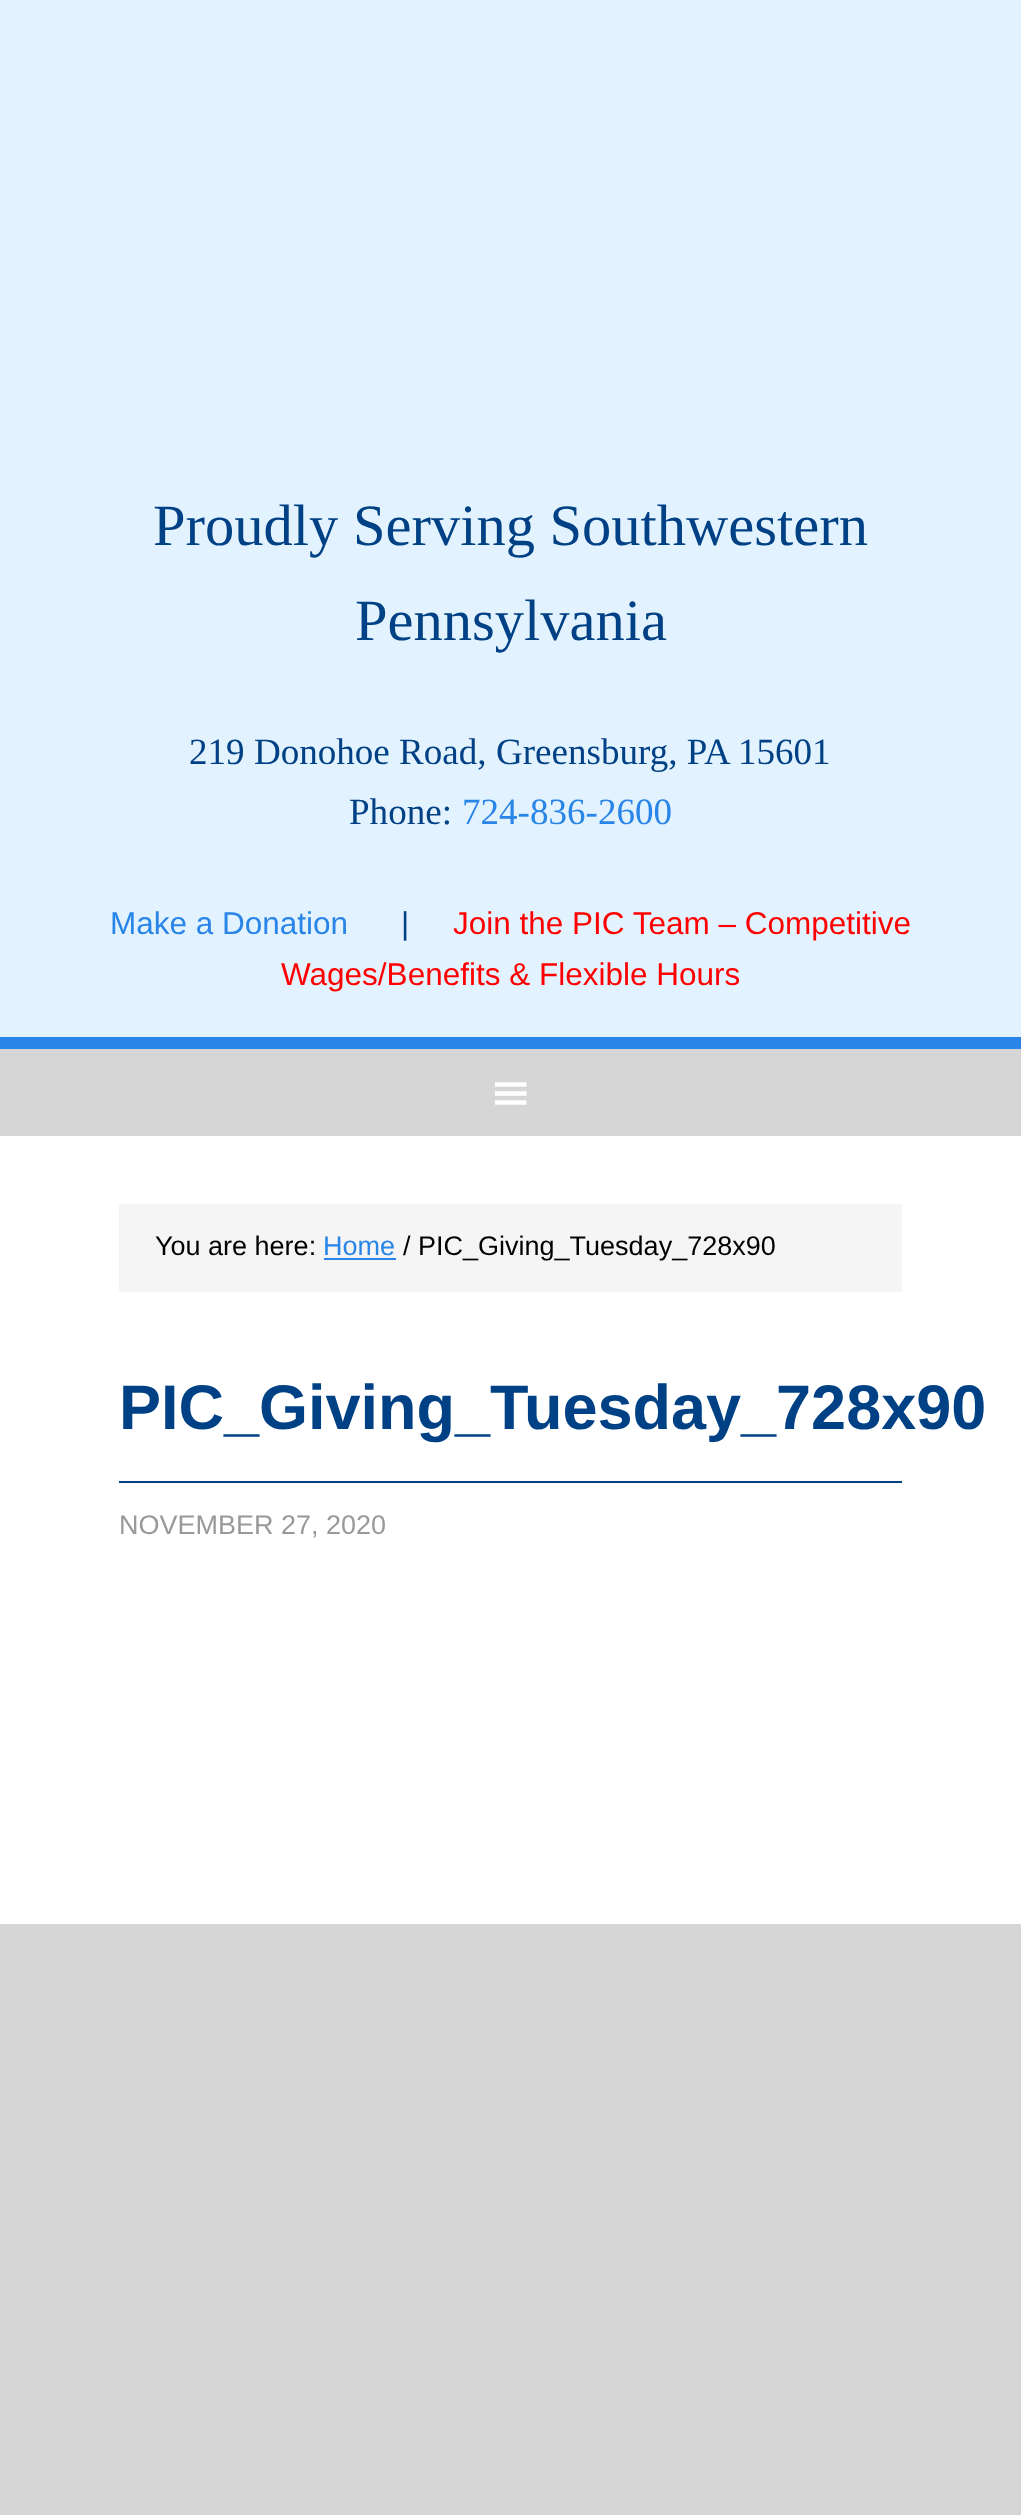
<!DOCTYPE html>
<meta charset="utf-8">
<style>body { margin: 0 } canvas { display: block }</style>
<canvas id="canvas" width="1021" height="2515"></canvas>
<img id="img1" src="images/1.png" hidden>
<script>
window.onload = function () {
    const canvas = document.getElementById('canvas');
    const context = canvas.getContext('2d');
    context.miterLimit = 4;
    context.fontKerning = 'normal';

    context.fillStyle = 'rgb(226, 242, 254)';
    context.fillRect(0, 0, 1021, 2515);
    context.fillStyle = 'rgb(42, 133, 232)';
    context.fillRect(0, 1037, 1021, 12);
    context.fillStyle = 'rgb(214, 214, 214)';
    context.fillRect(0, 1049, 1021, 87);
    context.drawImage(document.getElementById('img1'), 495, 1082, 32, 23);
    context.fillStyle = 'rgb(255, 255, 255)';
    context.fillRect(0, 1136, 1021, 788);
    context.fillStyle = 'rgb(245, 245, 245)';
    context.fillRect(119, 1204, 783, 88);
    context.fillStyle = 'rgb(42, 133, 232)';
    context.fillRect(324, 1258, 72, 2);
    context.fillStyle = 'rgb(0, 65, 133)';
    context.fillRect(119, 1481, 783, 2);
    context.fillStyle = 'rgb(214, 214, 214)';
    context.fillRect(0, 1924, 1021, 591);
    context.font = '58.5px Liberation Serif';
    context.fillStyle = 'rgb(0, 65, 133)';
    context.fillText('Proudly Serving Southwestern', 153, 545);
    context.fillText('Pennsylvania', 355, 640);
    context.font = '37.1px Liberation Serif';
    context.fillText('219 Donohoe Road, Greensburg, PA 15601', 189, 764);
    context.fillText('Phone:', 349, 824);
    context.fillStyle = 'rgb(42, 133, 232)';
    context.fillText('724-836-2600', 462, 824);
    context.font = '31.5px Liberation Sans';
    context.fillText('Make a Donation', 110, 934);
    context.fillStyle = 'rgb(0, 65, 133)';
    context.fillText('|', 401, 934);
    context.fillStyle = 'rgb(255, 0, 0)';
    context.fillText('Join the PIC Team – Competitive', 453, 934);
    context.fillText('Wages/Benefits & Flexible Hours', 281, 985);
    context.font = '27px Liberation Sans';
    context.fillStyle = 'rgb(0, 0, 0)';
    context.fillText('You are here:', 155, 1255);
    context.fillStyle = 'rgb(42, 133, 232)';
    context.fillText('Home', 323, 1255);
    context.fillStyle = 'rgb(0, 0, 0)';
    context.fillText('/ PIC_Giving_Tuesday_728x90', 403, 1255);
    context.font = 'bold 63px Liberation Sans';
    context.fillStyle = 'rgb(0, 65, 133)';
    context.fillText('PIC_Giving_Tuesday_728x90', 119, 1429);
    context.font = '27px Liberation Sans';
    context.fillStyle = 'rgb(153, 153, 153)';
    context.fillText('NOVEMBER 27, 2020', 119, 1534);
};
</script>
